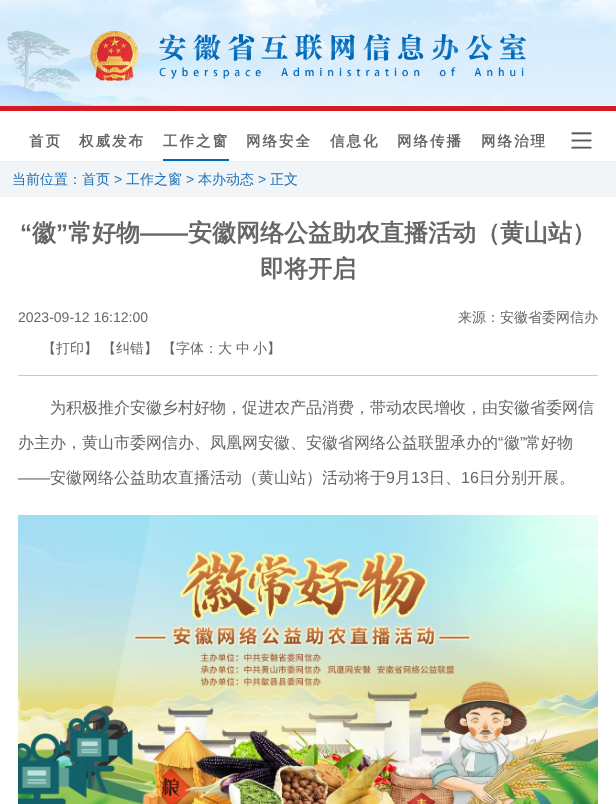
<!DOCTYPE html>
<meta charset="utf-8">
<style>body { margin: 0 } canvas { display: block }</style>
<canvas id="canvas" width="616" height="804"></canvas>
<img id="img1" src="images/1.png" hidden>
<img id="img2" src="images/2.png" hidden>
<img id="img3" src="images/3.png" hidden>
<img id="img4" src="images/4.png" hidden>
<script>
window.onload = function () {
    const canvas = document.getElementById('canvas');
    const context = canvas.getContext('2d');
    context.miterLimit = 4;
    context.fontKerning = 'normal';

    context.fillStyle = 'rgb(255, 255, 255)';
    context.fillRect(0, 0, 616, 804);
    context.drawImage(document.getElementById('img1'), 0, 0, 616, 106);
    context.fillStyle = 'rgb(215, 26, 33)';
    context.fillRect(0, 106, 616, 5);
    context.drawImage(document.getElementById('img2'), 90, 31, 436, 50);
    context.fillStyle = 'rgb(240, 240, 240)';
    context.fillRect(0, 161, 616, 1);
    context.fillStyle = 'rgb(0, 104, 183)';
    context.fillRect(163, 159, 66, 2);
    context.drawImage(document.getElementById('img3'), 571, 132, 21, 17);
    context.fillStyle = 'rgb(241, 245, 248)';
    context.fillRect(0, 162, 616, 35);
    context.fillStyle = 'rgb(200, 200, 200)';
    context.fillRect(18, 375, 580, 1);
    context.drawImage(document.getElementById('img4'), 18, 515, 580, 289);
    context.letterSpacing = '2px';
    context.font = 'bold 14.5px WenQuanYi Zen Hei';
    context.fillStyle = 'rgb(102, 102, 102)';
    context.fillText('首页', 29, 146);
    context.fillText('权威发布', 79, 146);
    context.fillText('工作之窗', 163, 146);
    context.fillText('网络安全', 246, 146);
    context.fillText('信息化', 330, 146);
    context.fillText('网络传播', 397, 146);
    context.fillText('网络治理', 481, 146);
    context.letterSpacing = '0px';
    context.font = '500 14px WenQuanYi Zen Hei';
    context.fillStyle = 'rgb(32, 112, 181)';
    context.fillText('当前位置：首页', 12, 184);
    context.font = '14px Liberation Sans';
    context.fillText('>', 114, 184);
    context.font = '500 14px WenQuanYi Zen Hei';
    context.fillText('工作之窗', 126, 184);
    context.font = '14px Liberation Sans';
    context.fillText('>', 186, 184);
    context.font = '500 14px WenQuanYi Zen Hei';
    context.fillText('本办动态', 198, 184);
    context.font = '14px Liberation Sans';
    context.fillText('>', 258, 184);
    context.font = '500 14px WenQuanYi Zen Hei';
    context.fillText('正文', 270, 184);
    context.font = 'bold 24px Liberation Sans';
    context.fillStyle = 'rgb(102, 102, 102)';
    context.fillText('“', 20, 241);
    context.font = 'bold 24px WenQuanYi Zen Hei';
    context.fillText('徽', 32, 241);
    context.font = 'bold 24px Liberation Sans';
    context.fillText('”', 56, 241);
    context.font = 'bold 24px WenQuanYi Zen Hei';
    context.fillText('常好物', 68, 241);
    context.fillText('安徽网络公益助农直播活动（黄山站）', 188, 241);
    context.font = 'bold 24px Liberation Sans';
    context.fillText('——', 140, 241);
    context.font = 'bold 24px WenQuanYi Zen Hei';
    context.fillText('即将开启', 260, 277);
    context.font = '14px Liberation Sans';
    context.fillText('2023-09-12 16:12:00', 18, 322);
    context.font = '500 14px WenQuanYi Zen Hei';
    context.fillText('来源：安徽省委网信办', 458, 322);
    context.fillText('【打印】', 42, 353);
    context.fillText('【纠错】', 102, 353);
    context.fillText('【字体：大', 162, 353);
    context.fillText('中', 236, 353);
    context.fillText('小】', 253, 353);
    context.font = '500 16px WenQuanYi Zen Hei';
    context.fillText('为积极推介安徽乡村好物，促进农产品消费，带动农民增收，由安徽省委网信', 50, 413);
    context.fillText('办主办，黄山市委网信办、凤凰网安徽、安徽省网络公益联盟承办的', 18, 448);
    context.font = '16px Liberation Sans';
    context.fillText('“', 498, 448);
    context.font = '500 16px WenQuanYi Zen Hei';
    context.fillText('徽', 504, 448);
    context.font = '16px Liberation Sans';
    context.fillText('”', 520, 448);
    context.font = '500 16px WenQuanYi Zen Hei';
    context.fillText('常好物', 525, 448);
    context.font = '16px Liberation Sans';
    context.fillText('——', 18, 483);
    context.font = '500 16px WenQuanYi Zen Hei';
    context.fillText('安徽网络公益助农直播活动（黄山站）活动将于', 50, 483);
    context.font = '16px Liberation Sans';
    context.fillText('9', 386, 483);
    context.font = '500 16px WenQuanYi Zen Hei';
    context.fillText('月', 395, 483);
    context.font = '16px Liberation Sans';
    context.fillText('13', 411, 483);
    context.font = '500 16px WenQuanYi Zen Hei';
    context.fillText('日、', 429, 483);
    context.font = '16px Liberation Sans';
    context.fillText('16', 461, 483);
    context.font = '500 16px WenQuanYi Zen Hei';
    context.fillText('日分别开展。', 479, 483);
};
</script>
